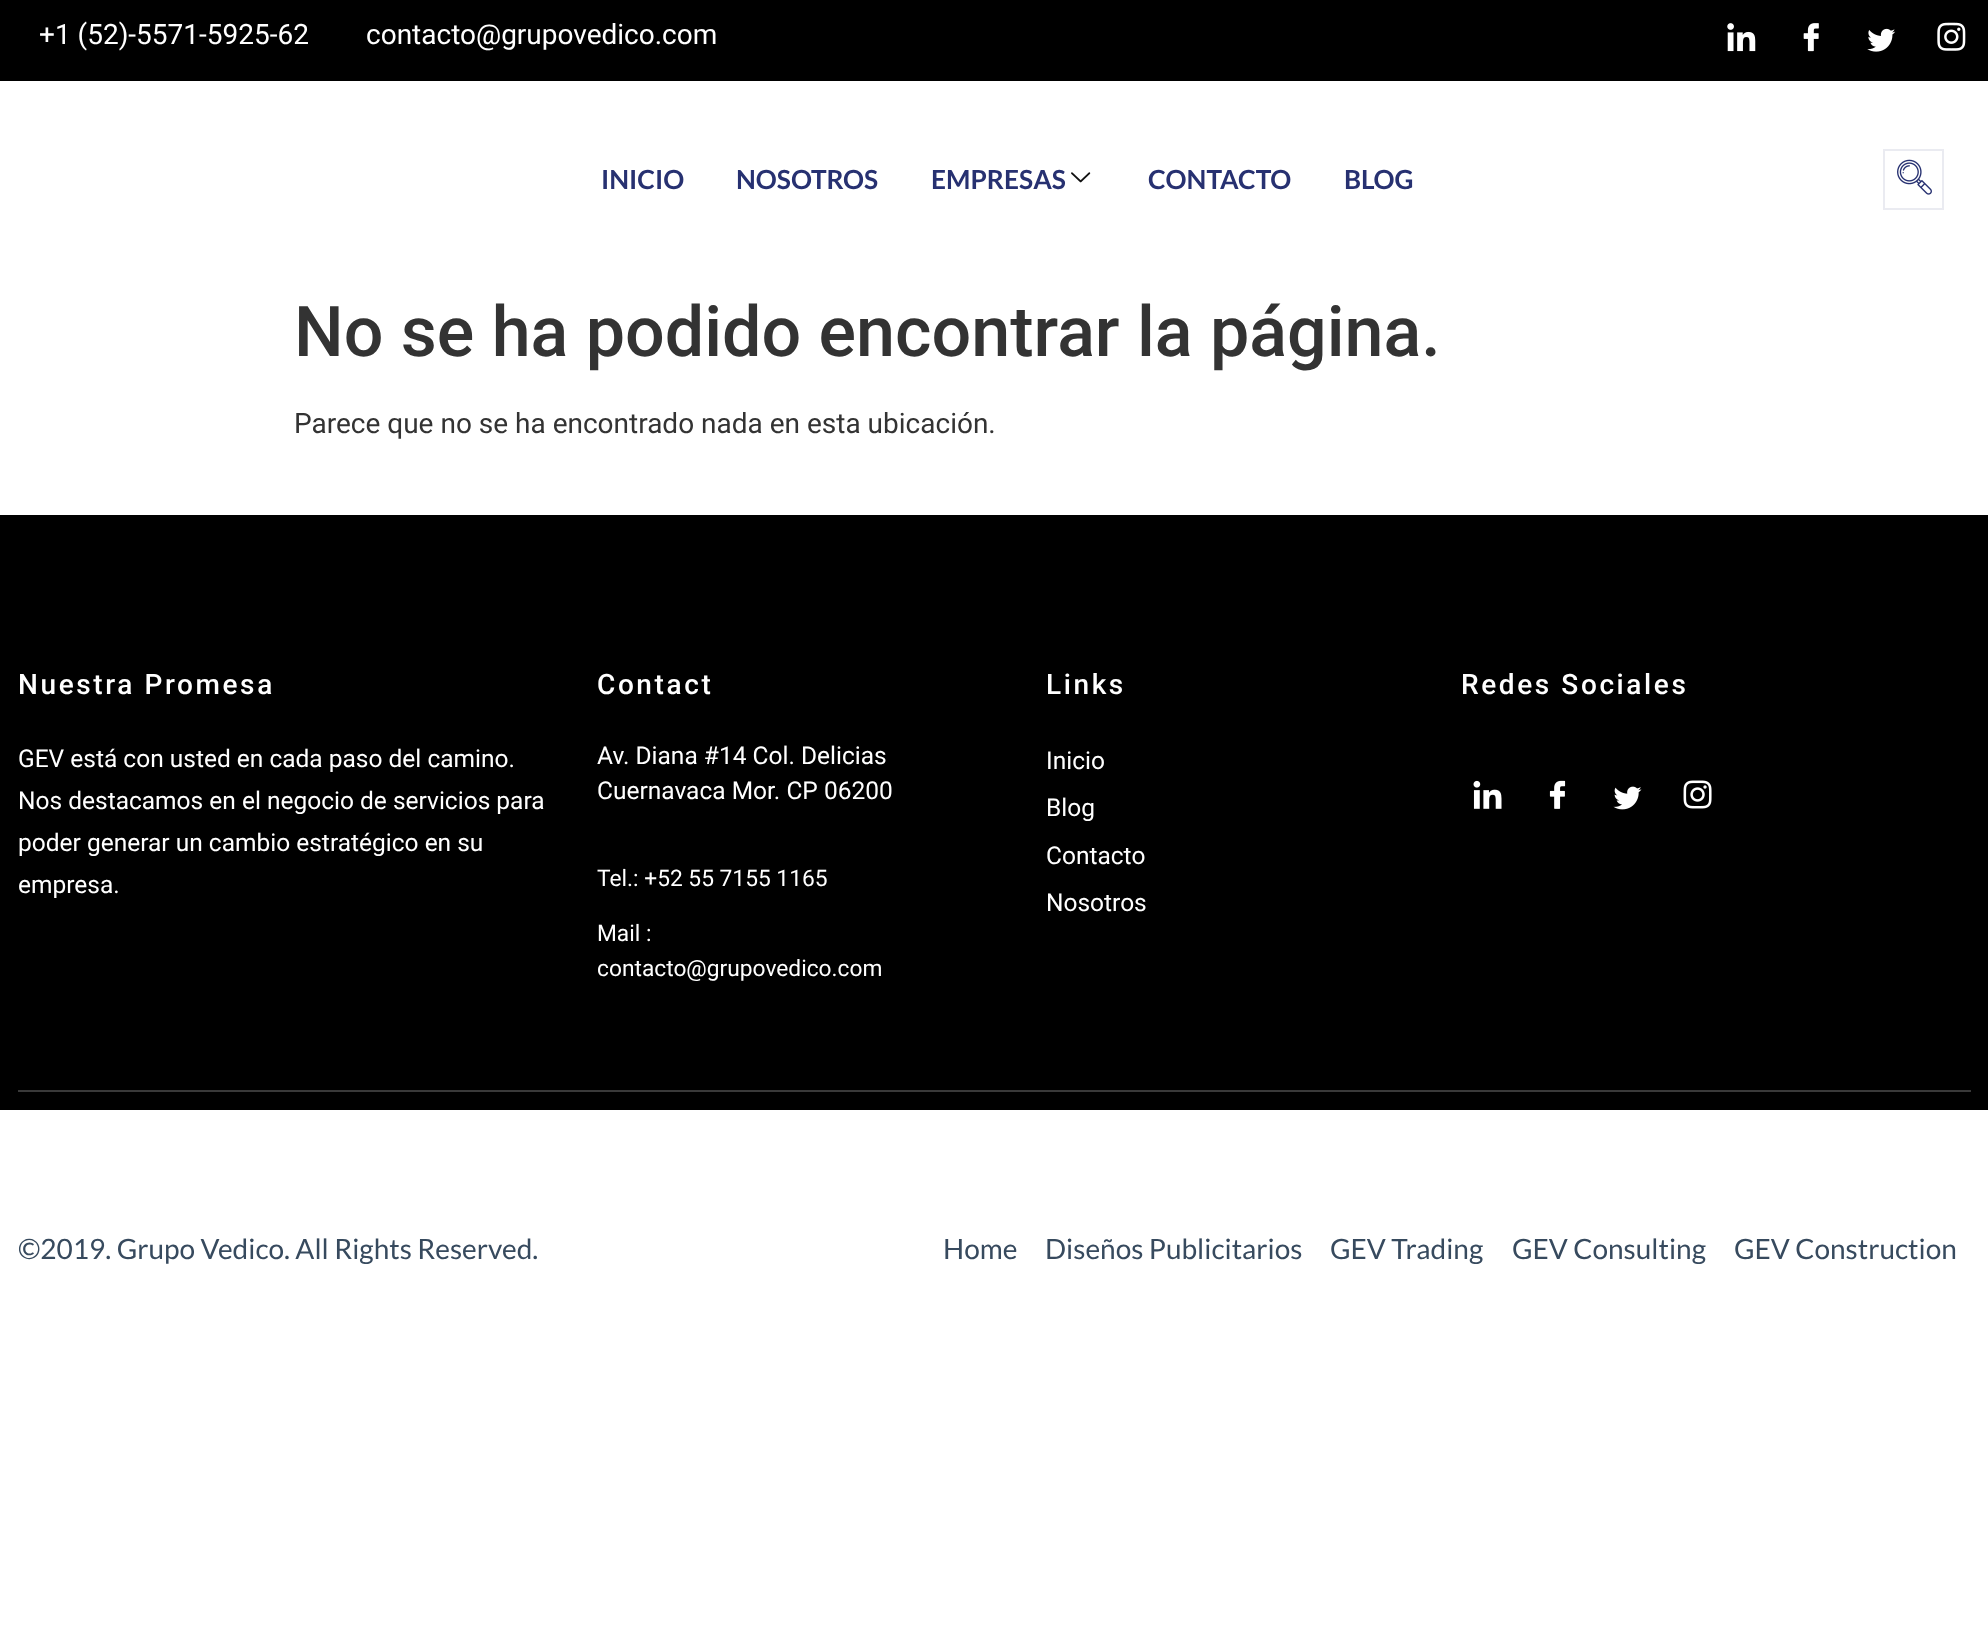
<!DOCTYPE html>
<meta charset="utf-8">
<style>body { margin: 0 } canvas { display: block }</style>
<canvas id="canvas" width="1988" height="1644"></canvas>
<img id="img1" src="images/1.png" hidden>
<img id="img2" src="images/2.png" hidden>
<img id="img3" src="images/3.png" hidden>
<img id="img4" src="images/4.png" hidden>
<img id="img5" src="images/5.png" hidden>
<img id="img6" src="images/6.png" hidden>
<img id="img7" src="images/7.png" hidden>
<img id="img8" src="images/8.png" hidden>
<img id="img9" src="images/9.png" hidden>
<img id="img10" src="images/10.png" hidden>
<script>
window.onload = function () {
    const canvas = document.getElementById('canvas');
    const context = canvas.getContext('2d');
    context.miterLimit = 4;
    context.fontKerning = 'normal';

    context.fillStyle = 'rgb(255, 255, 255)';
    context.fillRect(0, 0, 1988, 1644);
    context.fillStyle = 'rgb(0, 0, 0)';
    context.fillRect(0, 0, 1988, 81);
    context.drawImage(document.getElementById('img1'), 1727, 23, 29, 29);
    context.drawImage(document.getElementById('img2'), 1803, 23, 16, 29);
    context.drawImage(document.getElementById('img3'), 1867, 28, 29, 24);
    context.drawImage(document.getElementById('img4'), 1937, 22, 29, 29);
    context.drawImage(document.getElementById('img5'), 1071, 172, 20, 11);
    context.strokeStyle = 'rgb(234, 235, 241)';
    context.lineWidth = 2;
    context.strokeRect(1884, 150, 59, 59);
    context.drawImage(document.getElementById('img6'), 1897, 159, 35, 36);
    context.fillRect(0, 515, 1988, 595);
    context.fillStyle = 'rgb(57, 57, 57)';
    context.fillRect(18, 1090, 1953, 2);
    context.drawImage(document.getElementById('img7'), 1473, 780, 29, 29);
    context.drawImage(document.getElementById('img8'), 1549, 780, 17, 29);
    context.drawImage(document.getElementById('img9'), 1613, 786, 29, 24);
    context.drawImage(document.getElementById('img10'), 1683, 780, 29, 29);
    context.font = '28px Roboto';
    context.fillStyle = 'rgb(255, 255, 255)';
    context.fillText('+1 (52)-5571-5925-62', 39, 44);
    context.fillText('contacto@grupovedico.com', 366, 44);
    context.font = 'bold 26.25px Lato';
    context.fillStyle = 'rgb(39, 49, 113)';
    context.fillText('INICIO', 601, 189);
    context.fillText('NOSOTROS', 736, 189);
    context.fillText('EMPRESAS', 931, 189);
    context.fillText('CONTACTO', 1148, 189);
    context.fillText('BLOG', 1344, 189);
    context.font = '500 70px Roboto';
    context.fillStyle = 'rgb(51, 51, 51)';
    context.fillText('No se ha podido encontrar la página.', 294, 356);
    context.font = '28px Roboto';
    context.fillText('Parece que no se ha encontrado nada en esta ubicación.', 294, 433);
    context.letterSpacing = '2.6px';
    context.font = '500 28px Roboto';
    context.fillStyle = 'rgb(255, 255, 255)';
    context.fillText('Nuestra Promesa', 18, 694);
    context.letterSpacing = '0px';
    context.font = '24.5px Roboto';
    context.fillText('GEV está con usted en cada paso del camino.', 18, 767);
    context.fillText('Nos destacamos en el negocio de servicios para', 18, 809);
    context.fillText('poder generar un cambio estratégico en su', 18, 851);
    context.fillText('empresa.', 18, 893);
    context.letterSpacing = '2.6px';
    context.font = '500 28px Roboto';
    context.fillText('Contact', 597, 694);
    context.letterSpacing = '0px';
    context.font = '24.5px Roboto';
    context.fillText('Av. Diana #14 Col. Delicias', 597, 764);
    context.fillText('Cuernavaca Mor. CP 06200', 597, 799);
    context.font = '22.75px Roboto';
    context.fillText('Tel.: +52 55 7155 1165', 597, 886);
    context.fillText('Mail :', 597, 941);
    context.fillText('contacto@grupovedico.com', 597, 976);
    context.letterSpacing = '2.6px';
    context.font = '500 28px Roboto';
    context.fillText('Links', 1046, 694);
    context.letterSpacing = '0px';
    context.font = '24.5px Roboto';
    context.fillText('Inicio', 1046, 769);
    context.fillText('Blog', 1046, 816);
    context.fillText('Contacto', 1046, 864);
    context.fillText('Nosotros', 1046, 911);
    context.letterSpacing = '2.6px';
    context.font = '500 28px Roboto';
    context.fillText('Redes Sociales', 1461, 694);
    context.letterSpacing = '0px';
    context.font = '28px Lato';
    context.fillStyle = 'rgb(55, 74, 94)';
    context.fillText('©2019. Grupo Vedico. All Rights Reserved.', 18, 1259);
    context.fillText('Home', 943, 1259);
    context.fillText('Diseños Publicitarios', 1045, 1259);
    context.fillText('GEV Trading', 1330, 1259);
    context.fillText('GEV Consulting', 1512, 1259);
    context.fillText('GEV Construction', 1734, 1259);
};
</script>
